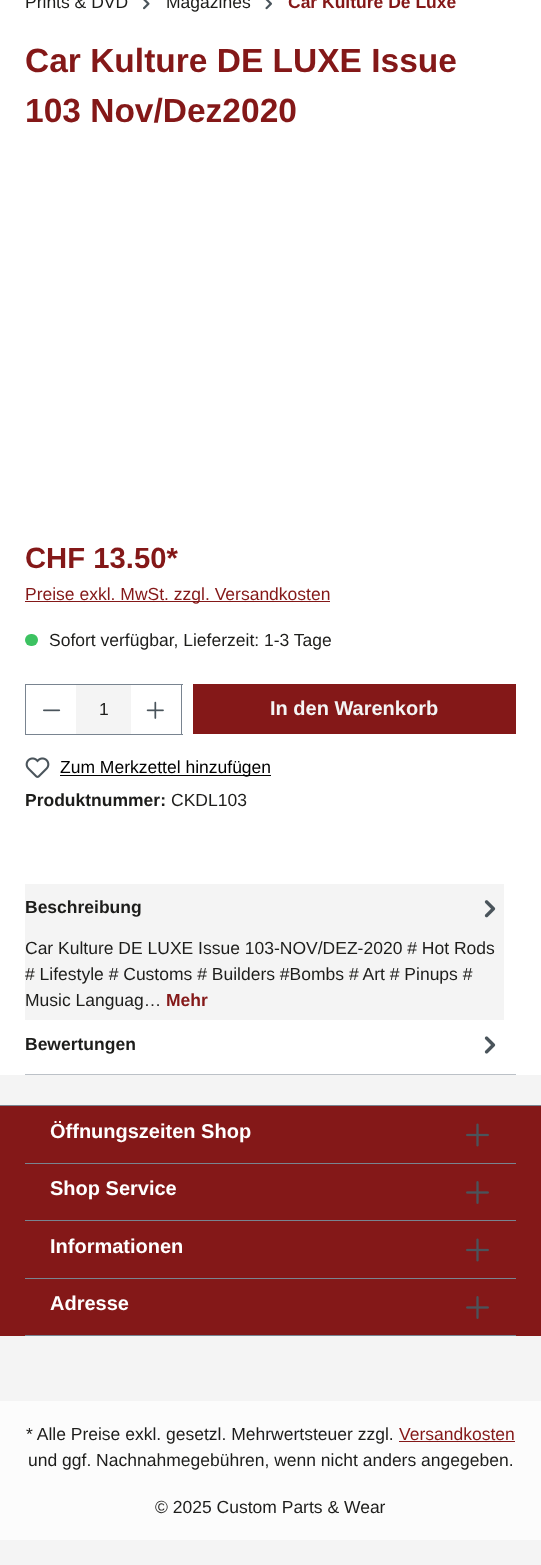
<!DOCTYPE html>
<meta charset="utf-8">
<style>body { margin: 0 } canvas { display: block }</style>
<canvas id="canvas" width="541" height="1565"></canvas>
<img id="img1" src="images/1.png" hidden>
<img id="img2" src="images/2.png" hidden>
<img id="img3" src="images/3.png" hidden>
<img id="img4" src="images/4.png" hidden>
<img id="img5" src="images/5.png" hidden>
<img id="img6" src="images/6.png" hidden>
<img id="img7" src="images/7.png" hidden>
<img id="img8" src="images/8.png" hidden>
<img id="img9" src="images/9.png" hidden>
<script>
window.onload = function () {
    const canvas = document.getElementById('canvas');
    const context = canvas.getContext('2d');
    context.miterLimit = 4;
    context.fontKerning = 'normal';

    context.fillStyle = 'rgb(244, 244, 244)';
    context.fillRect(0, 0, 541, 1565);
    context.fillStyle = 'rgb(255, 255, 255)';
    context.fillRect(0, 0, 541, 1075);
    context.drawImage(document.getElementById('img1'), 143, 0, 7, 10);
    context.drawImage(document.getElementById('img2'), 265, 0, 7, 10);
    context.fillStyle = 'rgb(132, 24, 24)';
    context.fillRect(25, 601, 305, 1);
    context.fillStyle = 'rgb(60, 194, 97)';
    context.beginPath();
    context.roundRect(25, 634, 13, 12, 6);
    context.fill();
    context.fillStyle = 'rgb(121, 132, 144)';
    context.fillRect(25, 684, 158, 1);
    context.fillRect(25, 734, 106, 1);
    context.fillRect(25, 684, 1, 51);
    context.drawImage(document.getElementById('img3'), 43, 709, 18, 3);
    context.fillStyle = 'rgb(244, 244, 244)';
    context.fillRect(76, 685, 55, 49);
    context.fillStyle = 'rgb(121, 132, 144)';
    context.fillRect(181, 684, 1, 51);
    context.fillRect(130, 734, 53, 1);
    context.drawImage(document.getElementById('img4'), 146, 701, 18, 18);
    context.fillStyle = 'rgb(132, 24, 24)';
    context.fillRect(193, 684, 323, 50);
    context.drawImage(document.getElementById('img5'), 25, 757, 25, 21);
    context.fillStyle = 'rgb(0, 0, 0)';
    context.fillRect(60, 775, 211, 1);
    context.fillStyle = 'rgb(188, 193, 199)';
    context.fillRect(25, 1074, 491, 1);
    context.fillStyle = 'rgb(244, 244, 244)';
    context.fillRect(25, 884, 479, 136);
    context.drawImage(document.getElementById('img6'), 484, 900, 12, 18);
    context.drawImage(document.getElementById('img7'), 484, 1036, 12, 18);
    context.fillStyle = 'rgb(121, 132, 144)';
    context.fillRect(0, 1105, 541, 1);
    context.fillStyle = 'rgb(132, 24, 24)';
    context.fillRect(0, 1106, 541, 230);
    context.fillStyle = 'rgb(121, 132, 144)';
    context.fillRect(25, 1163, 491, 1);
    context.drawImage(document.getElementById('img8'), 466, 1123, 23, 24);
    context.fillRect(25, 1220, 491, 1);
    context.drawImage(document.getElementById('img9'), 466, 1181, 23, 23);
    context.fillRect(25, 1278, 491, 1);
    context.drawImage(document.getElementById('img8'), 466, 1238, 23, 24);
    context.fillRect(25, 1335, 491, 1);
    context.drawImage(document.getElementById('img9'), 466, 1296, 23, 23);
    context.fillStyle = 'rgb(252, 252, 252)';
    context.fillRect(0, 1401, 541, 139);
    context.fillStyle = 'rgb(132, 24, 24)';
    context.fillRect(399, 1441, 116, 1);
    context.font = '17.5px Liberation Sans';
    context.fillStyle = 'rgb(29, 29, 27)';
    context.fillText('Prints & DVD', 25, 8);
    context.fillText('Magazines', 166, 8);
    context.font = 'bold 17.5px Liberation Sans';
    context.fillStyle = 'rgb(132, 24, 24)';
    context.fillText('Car Kulture De Luxe', 288, 8);
    context.font = 'bold 33.5px Liberation Sans';
    context.fillText('Car Kulture DE LUXE Issue', 25, 72);
    context.fillText('103 Nov/Dez2020', 25, 122);
    context.font = 'bold 29.25px Liberation Sans';
    context.fillText('CHF 13.50*', 25, 568);
    context.font = '17.5px Liberation Sans';
    context.fillText('Preise exkl. MwSt. zzgl. Versandkosten', 25, 600);
    context.fillStyle = 'rgb(29, 29, 27)';
    context.fillText('Sofort verfügbar, Lieferzeit: 1-3 Tage', 49, 646);
    context.fillText('1', 99, 715);
    context.font = 'bold 20px Liberation Sans';
    context.fillStyle = 'rgb(244, 244, 244)';
    context.fillText('In den Warenkorb', 270, 715);
    context.font = '17.5px Liberation Sans';
    context.fillStyle = 'rgb(0, 0, 0)';
    context.fillText('Zum Merkzettel hinzufügen', 60, 773);
    context.font = 'bold 17.5px Liberation Sans';
    context.fillStyle = 'rgb(29, 29, 27)';
    context.fillText('Produktnummer:', 25, 806);
    context.font = '17.5px Liberation Sans';
    context.fillText('CKDL103', 171, 806);
    context.font = 'bold 17.5px Liberation Sans';
    context.fillText('Beschreibung', 25, 913);
    context.font = '17.5px Liberation Sans';
    context.fillText('Car Kulture DE LUXE Issue 103-NOV/DEZ-2020 # Hot Rods', 25, 954);
    context.fillText('# Lifestyle # Customs # Builders #Bombs # Art # Pinups #', 25, 980);
    context.fillText('Music Languag…', 25, 1006);
    context.font = 'bold 17.5px Liberation Sans';
    context.fillStyle = 'rgb(132, 24, 24)';
    context.fillText('Mehr', 166, 1006);
    context.fillStyle = 'rgb(29, 29, 27)';
    context.fillText('Bewertungen', 25, 1050);
    context.font = 'bold 20px Liberation Sans';
    context.fillStyle = 'rgb(255, 255, 255)';
    context.fillText('Öffnungszeiten Shop', 50, 1138);
    context.fillText('Shop Service', 50, 1195);
    context.fillText('Informationen', 50, 1253);
    context.fillText('Adresse', 50, 1310);
    context.font = '17.5px Liberation Sans';
    context.fillStyle = 'rgb(29, 29, 27)';
    context.fillText('* Alle Preise exkl. gesetzl. Mehrwertsteuer zzgl.', 26, 1440);
    context.fillStyle = 'rgb(132, 24, 24)';
    context.fillText('Versandkosten', 399, 1440);
    context.fillStyle = 'rgb(29, 29, 27)';
    context.fillText('und ggf. Nachnahmegebühren, wenn nicht anders angegeben.', 28, 1466);
    context.fillText('© 2025 Custom Parts & Wear', 155, 1513);
};
</script>
